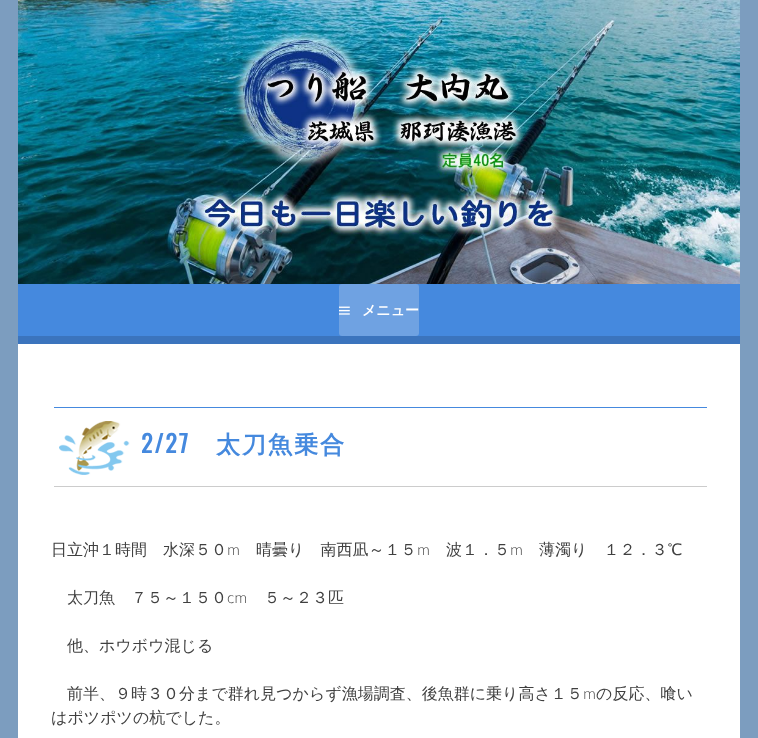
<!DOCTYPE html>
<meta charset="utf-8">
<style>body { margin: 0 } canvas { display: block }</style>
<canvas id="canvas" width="758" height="738"></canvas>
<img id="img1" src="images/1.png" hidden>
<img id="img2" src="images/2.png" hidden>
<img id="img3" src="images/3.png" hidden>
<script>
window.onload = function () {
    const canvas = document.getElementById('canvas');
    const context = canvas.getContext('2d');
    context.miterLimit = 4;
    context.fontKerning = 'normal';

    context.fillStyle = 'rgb(124, 157, 191)';
    context.fillRect(0, 0, 758, 738);
    context.drawImage(document.getElementById('img1'), 18, 0, 722, 284);
    context.fillStyle = 'rgb(69, 137, 222)';
    context.fillRect(18, 284, 722, 52);
    context.fillStyle = 'rgb(59, 116, 189)';
    context.fillRect(18, 336, 722, 8);
    context.fillStyle = 'rgb(111, 162, 226)';
    context.beginPath();
    context.roundRect(339, 284, 80, 52, 3);
    context.fill();
    context.drawImage(document.getElementById('img2'), 339, 306, 11, 9);
    context.fillStyle = 'rgb(255, 255, 255)';
    context.fillRect(18, 344, 722, 394);
    context.drawImage(document.getElementById('img3'), 54, 407, 653, 80);
    context.font = 'bold 14px WenQuanYi Zen Hei';
    context.fillText('メニュー', 362, 315);
    context.letterSpacing = '2px';
    context.font = 'bold 24px Oswald';
    context.fillStyle = 'rgb(69, 137, 222)';
    context.fillText('2/27', 141, 453);
    context.font = 'bold 24px WenQuanYi Zen Hei';
    context.fillText('太刀魚乗合', 216, 453);
    context.letterSpacing = '0px';
    context.font = '500 16px WenQuanYi Zen Hei';
    context.fillStyle = 'rgb(64, 64, 64)';
    context.fillText('日立沖１時間　水深５０', 51, 555);
    context.font = '300 16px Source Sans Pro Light';
    context.fillText('m', 227, 555);
    context.font = '500 16px WenQuanYi Zen Hei';
    context.fillText('晴曇り　南西凪～１５', 256, 555);
    context.font = '300 16px Source Sans Pro Light';
    context.fillText('m', 417, 555);
    context.font = '500 16px WenQuanYi Zen Hei';
    context.fillText('波１．５', 446, 555);
    context.font = '300 16px Source Sans Pro Light';
    context.fillText('m', 510, 555);
    context.font = '500 16px WenQuanYi Zen Hei';
    context.fillText('薄濁り　１２．３℃', 539, 555);
    context.fillText('太刀魚　７５～１５０', 67, 603);
    context.font = '300 16px Source Sans Pro Light';
    context.fillText('cm', 227, 603);
    context.font = '500 16px WenQuanYi Zen Hei';
    context.fillText('５～２３匹', 264, 603);
    context.fillText('他、ホウボウ混じる', 67, 651);
    context.fillText('前半、９時３０分まで群れ見つからず漁場調査、後魚群に乗り高さ１５', 67, 699);
    context.font = '300 16px Source Sans Pro Light';
    context.fillText('m', 583, 699);
    context.font = '500 16px WenQuanYi Zen Hei';
    context.fillText('の反応、喰い', 596, 699);
    context.fillText('はポツポツの杭でした。', 51, 723);
};
</script>
